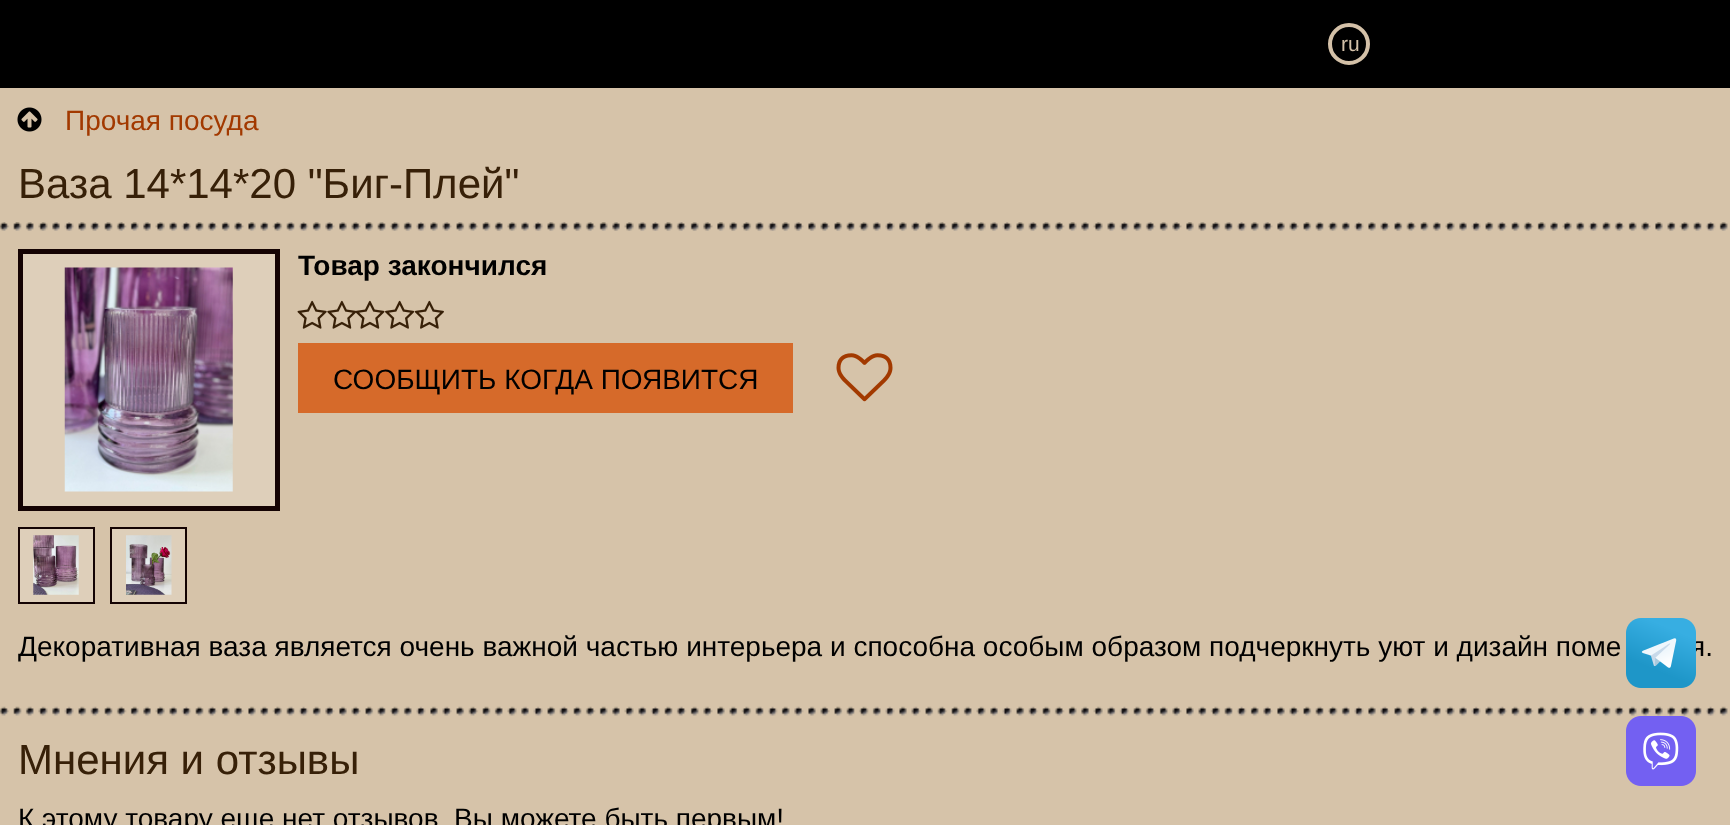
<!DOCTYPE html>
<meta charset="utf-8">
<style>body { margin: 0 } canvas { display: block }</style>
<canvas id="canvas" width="1730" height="825"></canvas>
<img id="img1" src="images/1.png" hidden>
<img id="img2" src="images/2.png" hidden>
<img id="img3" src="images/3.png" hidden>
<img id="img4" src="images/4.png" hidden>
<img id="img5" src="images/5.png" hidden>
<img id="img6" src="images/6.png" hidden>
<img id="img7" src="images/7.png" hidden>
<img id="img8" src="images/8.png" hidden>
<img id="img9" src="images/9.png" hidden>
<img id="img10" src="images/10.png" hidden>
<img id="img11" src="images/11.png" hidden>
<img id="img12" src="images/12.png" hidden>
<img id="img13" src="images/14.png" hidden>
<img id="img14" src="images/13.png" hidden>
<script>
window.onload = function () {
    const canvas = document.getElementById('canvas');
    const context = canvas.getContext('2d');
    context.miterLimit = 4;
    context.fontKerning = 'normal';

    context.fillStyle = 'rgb(214, 195, 169)';
    context.fillRect(0, 0, 1730, 825);
    context.fillStyle = 'rgb(0, 0, 0)';
    context.fillRect(0, 0, 1730, 88);
    context.beginPath();
    context.arc(1349, 44, 19, 0, 2 * Math.PI);
    context.strokeStyle = 'rgb(212, 193, 168)';
    context.lineWidth = 4;
    context.stroke();
    context.drawImage(document.getElementById('img1'), 17, 107, 25, 25);
    context.drawImage(document.getElementById('img2'), 0, 706, 1728, 10);
    context.drawImage(document.getElementById('img3'), 0, 222, 1728, 9);
    context.fillStyle = 'rgb(222, 207, 186)';
    context.beginPath();
    context.rect(20.5, 251.5, 257, 257);
    context.fill();
    context.strokeStyle = 'rgb(20, 3, 3)';
    context.lineWidth = 5;
    context.stroke();
    context.drawImage(document.getElementById('img4'), 64, 267, 169, 225);
    context.beginPath();
    context.rect(19, 528, 75, 75);
    context.fill();
    context.lineWidth = 2;
    context.stroke();
    context.drawImage(document.getElementById('img5'), 33, 535, 46, 60);
    context.beginPath();
    context.rect(111, 528, 75, 75);
    context.fill();
    context.stroke();
    context.drawImage(document.getElementById('img6'), 126, 535, 46, 60);
    context.drawImage(document.getElementById('img7'), 297, 300, 30, 29);
    context.drawImage(document.getElementById('img8'), 327, 300, 30, 29);
    context.drawImage(document.getElementById('img9'), 355, 300, 30, 29);
    context.drawImage(document.getElementById('img10'), 385, 300, 30, 29);
    context.drawImage(document.getElementById('img11'), 414, 300, 30, 29);
    context.fillStyle = 'rgb(214, 106, 42)';
    context.fillRect(298, 343, 495, 70);
    context.drawImage(document.getElementById('img12'), 836, 353, 57, 49);
    context.drawImage(document.getElementById('img13'), 1626, 716, 70, 70);
    context.font = '21px Liberation Sans';
    context.fillStyle = 'rgb(212, 193, 168)';
    context.fillText('ru', 1341, 51);
    context.font = '28px Liberation Sans';
    context.fillStyle = 'rgb(162, 57, 0)';
    context.fillText('Прочая посуда', 65, 130);
    context.font = '42px Liberation Sans';
    context.fillStyle = 'rgb(55, 32, 8)';
    context.fillText('Ваза 14*14*20 "Биг-Плей"', 18, 198);
    context.font = 'bold 28px Liberation Sans';
    context.fillStyle = 'rgb(0, 0, 0)';
    context.fillText('Товар закончился', 298, 275);
    context.font = '28px Liberation Sans';
    context.fillText('СООБЩИТЬ КОГДА ПОЯВИТСЯ', 333, 389);
    context.fillText('Декоративная ваза является очень важной частью интерьера и способна особым образом подчеркнуть уют и дизайн поме', 18, 656);
    context.fillText('я.', 1690, 656);
    context.font = '42px Liberation Sans';
    context.fillStyle = 'rgb(55, 32, 8)';
    context.fillText('Мнения и отзывы', 18, 774);
    context.font = '28px Liberation Sans';
    context.fillStyle = 'rgb(0, 0, 0)';
    context.fillText('К этому товару еще нет отзывов. Вы можете быть первым!', 18, 828);
    context.drawImage(document.getElementById('img14'), 1626, 618, 70, 70);
};
</script>
